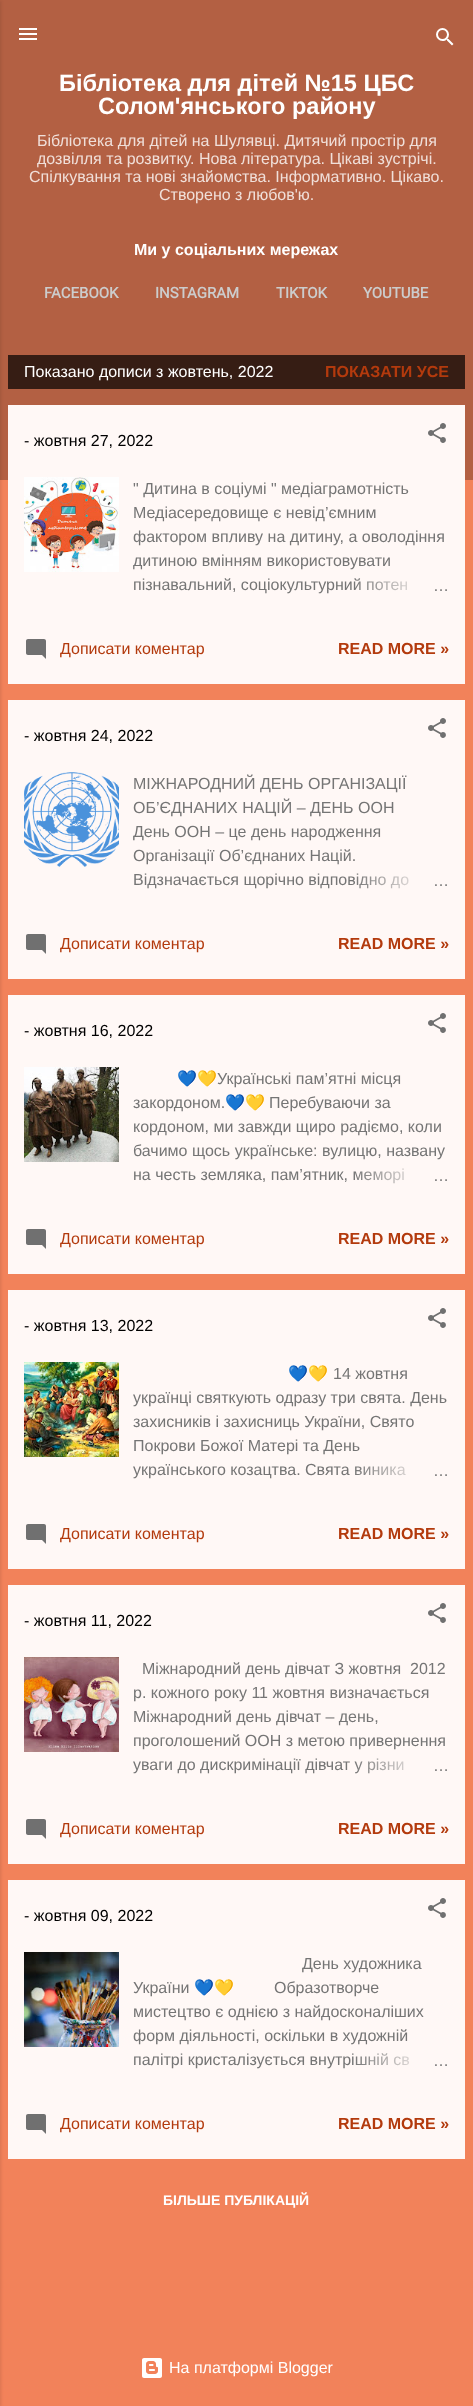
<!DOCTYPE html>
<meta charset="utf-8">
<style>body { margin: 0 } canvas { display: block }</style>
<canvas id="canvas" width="473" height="2406"></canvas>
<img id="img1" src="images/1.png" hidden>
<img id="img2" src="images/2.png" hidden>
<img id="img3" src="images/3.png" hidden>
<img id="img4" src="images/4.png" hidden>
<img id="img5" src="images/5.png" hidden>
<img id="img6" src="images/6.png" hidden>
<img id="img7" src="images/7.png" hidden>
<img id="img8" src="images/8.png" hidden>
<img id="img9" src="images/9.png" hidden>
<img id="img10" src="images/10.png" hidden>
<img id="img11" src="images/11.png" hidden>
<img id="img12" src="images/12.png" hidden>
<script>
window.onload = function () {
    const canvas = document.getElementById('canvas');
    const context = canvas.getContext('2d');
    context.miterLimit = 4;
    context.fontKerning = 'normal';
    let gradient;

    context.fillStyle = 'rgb(242, 130, 90)';
    context.fillRect(0, 0, 473, 2406);
    context.fillStyle = 'rgb(179, 96, 67)';
    context.fillRect(0, 0, 473, 480);
    context.fillStyle = 'rgba(0, 0, 0, 0.1)';
    context.filter = 'blur(1.5px)';
    context.beginPath();
    context.rect(-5, 1, 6, 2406);
    context.fill();
    context.filter = 'none';
    context.drawImage(document.getElementById('img1'), 19, 28, 18, 12);
    context.drawImage(document.getElementById('img2'), 436, 28, 18, 18);
    context.fillStyle = 'rgb(54, 29, 20)';
    context.fillRect(8, 355, 457, 34);
    context.fillStyle = 'rgb(255, 248, 246)';
    context.fillRect(8, 405, 457, 279);
    context.drawImage(document.getElementById('img3'), 428, 423, 18, 20);
    context.drawImage(document.getElementById('img4'), 24, 477, 95, 95);
    context.drawImage(document.getElementById('img5'), 26, 639, 20, 20);
    context.fillRect(8, 700, 457, 279);
    context.drawImage(document.getElementById('img3'), 428, 718, 18, 20);
    context.drawImage(document.getElementById('img6'), 24, 772, 95, 95);
    context.drawImage(document.getElementById('img5'), 26, 934, 20, 20);
    context.fillRect(8, 995, 457, 279);
    context.drawImage(document.getElementById('img7'), 428, 1013, 18, 20);
    context.drawImage(document.getElementById('img8'), 24, 1067, 95, 95);
    context.drawImage(document.getElementById('img5'), 26, 1229, 20, 20);
    context.fillRect(8, 1290, 457, 279);
    context.drawImage(document.getElementById('img3'), 428, 1308, 18, 20);
    context.drawImage(document.getElementById('img9'), 24, 1362, 95, 95);
    context.drawImage(document.getElementById('img5'), 26, 1524, 20, 20);
    context.fillRect(8, 1585, 457, 279);
    context.drawImage(document.getElementById('img3'), 428, 1603, 18, 20);
    context.drawImage(document.getElementById('img10'), 24, 1657, 95, 95);
    context.drawImage(document.getElementById('img5'), 26, 1819, 20, 20);
    context.fillRect(8, 1880, 457, 279);
    context.drawImage(document.getElementById('img3'), 428, 1898, 18, 20);
    context.drawImage(document.getElementById('img11'), 24, 1952, 95, 95);
    context.drawImage(document.getElementById('img5'), 26, 2114, 20, 20);
    context.drawImage(document.getElementById('img12'), 142, 2358, 20, 20);
    context.font = 'bold 23.5px Liberation Sans';
    context.fillStyle = 'rgb(255, 255, 255)';
    context.fillText('Бібліотека для дітей №15 ЦБС', 59, 91);
    context.fillText('Солом\'янського району', 98, 114);
    context.font = '16px Liberation Sans';
    context.fillStyle = 'rgb(240, 223, 217)';
    context.fillText('Бібліотека для дітей на Шулявці. Дитячий простір для', 37, 146);
    context.fillText('дозвілля та розвитку. Нова література. Цікаві зустрічі.', 37, 164);
    context.fillText('Спілкування та нові знайомства. Інформативно. Цікаво.', 29, 182);
    context.fillText('Створено з любов\'ю.', 159, 200);
    context.font = 'bold 16px Liberation Sans';
    context.fillStyle = 'rgb(255, 255, 255)';
    context.fillText('Ми у соціальних мережах', 134, 255);
    context.font = 'bold 15px Roboto';
    context.fillStyle = 'rgb(204, 204, 204)';
    context.fillText('FACEBOOK', 44, 298);
    context.fillText('INSTAGRAM', 155, 298);
    context.fillText('TIKTOK', 276, 298);
    context.fillText('YOUTUBE', 363, 298);
    context.font = '16px Liberation Sans';
    context.fillStyle = 'rgb(255, 255, 255)';
    context.fillText('Показано дописи з жовтень, 2022', 24, 377);
    context.font = 'bold 16px Liberation Sans';
    context.fillStyle = 'rgb(179, 58, 13)';
    context.fillText('ПОКАЗАТИ УСЕ', 325, 377);
    context.font = '16px Liberation Sans';
    context.fillStyle = 'rgb(0, 0, 0)';
    context.fillText('- жовтня 27, 2022', 24, 446);
    context.fillStyle = 'rgb(117, 117, 117)';
    context.fillText('" Дитина в соціумі " медіаграмотність', 133, 494);
    context.fillText('Медіасередовище є невід’ємним', 133, 518);
    context.fillText('фактором впливу на дитину, а оволодіння', 133, 542);
    context.save();
    context.beginPath();
    context.rect(133, 477, 316, 120);
    context.clip();
    context.fillText('дитиною вмінням використовувати', 133, 566);
    context.restore();
    context.fillText('пізнавальний, соціокультурний потен', 133, 590);
    gradient = context.createLinearGradient(449, 585, 353, 585);
    gradient.addColorStop(0, 'rgb(255, 248, 246)');
    gradient.addColorStop(0.2, 'rgb(255, 248, 246)');
    gradient.addColorStop(1, 'rgba(255, 248, 246, 0)');
    context.fillStyle = gradient;
    context.fillRect(355, 578, 52, 13);
    context.fillStyle = 'rgb(117, 117, 117)';
    context.fillText('…', 433, 591);
    context.fillStyle = 'rgb(179, 58, 13)';
    context.fillText('Дописати коментар', 60, 654);
    context.font = 'bold 16px Liberation Sans';
    context.fillText('READ MORE »', 338, 654);
    context.font = '16px Liberation Sans';
    context.fillStyle = 'rgb(0, 0, 0)';
    context.fillText('- жовтня 24, 2022', 24, 741);
    context.fillStyle = 'rgb(117, 117, 117)';
    context.fillText('МІЖНАРОДНИЙ ДЕНЬ ОРГАНІЗАЦІЇ', 133, 789);
    context.fillText('ОБ’ЄДНАНИХ НАЦІЙ – ДЕНЬ ООН', 133, 813);
    context.save();
    context.beginPath();
    context.rect(133, 772, 316, 120);
    context.clip();
    context.fillText('День ООН – це день народження', 133, 837);
    context.restore();
    context.fillText('Організації Об’єднаних Націй.', 133, 861);
    context.fillText('Відзначається щорічно відповідно до', 133, 885);
    gradient = context.createLinearGradient(449, 880, 353, 880);
    gradient.addColorStop(0, 'rgb(255, 248, 246)');
    gradient.addColorStop(0.2, 'rgb(255, 248, 246)');
    gradient.addColorStop(1, 'rgba(255, 248, 246, 0)');
    context.fillStyle = gradient;
    context.fillRect(357, 873, 52, 16);
    context.fillStyle = 'rgb(117, 117, 117)';
    context.fillText('…', 433, 886);
    context.fillStyle = 'rgb(179, 58, 13)';
    context.fillText('Дописати коментар', 60, 949);
    context.font = 'bold 16px Liberation Sans';
    context.fillText('READ MORE »', 338, 949);
    context.font = '16px Liberation Sans';
    context.fillStyle = 'rgb(0, 0, 0)';
    context.fillText('- жовтня 16, 2022', 24, 1036);
    context.font = '16px Noto Color Emoji';
    context.fillStyle = 'rgb(117, 117, 117)';
    context.fillText('💙💛', 177, 1084);
    context.font = '16px Liberation Sans';
    context.fillText('Українські пам’ятні місця', 217, 1084);
    context.fillText('закордоном.', 133, 1108);
    context.font = '16px Noto Color Emoji';
    context.fillText('💙💛', 225, 1108);
    context.font = '16px Liberation Sans';
    context.fillText('Перебуваючи за', 269, 1108);
    context.fillText('кордоном, ми завжди щиро радіємо, коли', 133, 1132);
    context.fillText('бачимо щось українське: вулицю, названу', 133, 1156);
    context.fillText('на честь земляка, пам’ятник, меморі', 133, 1180);
    gradient = context.createLinearGradient(449, 1175, 353, 1175);
    gradient.addColorStop(0, 'rgb(255, 248, 246)');
    gradient.addColorStop(0.2, 'rgb(255, 248, 246)');
    gradient.addColorStop(1, 'rgba(255, 248, 246, 0)');
    context.fillStyle = gradient;
    context.fillRect(355, 1168, 49, 16);
    context.fillStyle = 'rgb(117, 117, 117)';
    context.fillText('…', 433, 1181);
    context.fillStyle = 'rgb(179, 58, 13)';
    context.fillText('Дописати коментар', 60, 1244);
    context.font = 'bold 16px Liberation Sans';
    context.fillText('READ MORE »', 338, 1244);
    context.font = '16px Liberation Sans';
    context.fillStyle = 'rgb(0, 0, 0)';
    context.fillText('- жовтня 13, 2022', 24, 1331);
    context.font = '16px Noto Color Emoji';
    context.fillStyle = 'rgb(117, 117, 117)';
    context.fillText('💙💛', 288, 1379);
    context.font = '16px Liberation Sans';
    context.fillText('14 жовтня', 333, 1379);
    context.fillText('українці святкують одразу три свята. День', 133, 1403);
    context.fillText('захисників і захисниць України, Свято', 133, 1427);
    context.fillText('Покрови Божої Матері та День', 133, 1451);
    context.fillText('українського козацтва. Свята виника', 133, 1475);
    gradient = context.createLinearGradient(449, 1470, 353, 1470);
    gradient.addColorStop(0, 'rgb(255, 248, 246)');
    gradient.addColorStop(0.2, 'rgb(255, 248, 246)');
    gradient.addColorStop(1, 'rgba(255, 248, 246, 0)');
    context.fillStyle = gradient;
    context.fillRect(355, 1466, 51, 10);
    context.fillStyle = 'rgb(117, 117, 117)';
    context.fillText('…', 433, 1476);
    context.fillStyle = 'rgb(179, 58, 13)';
    context.fillText('Дописати коментар', 60, 1539);
    context.font = 'bold 16px Liberation Sans';
    context.fillText('READ MORE »', 338, 1539);
    context.font = '16px Liberation Sans';
    context.fillStyle = 'rgb(0, 0, 0)';
    context.fillText('- жовтня 11, 2022', 24, 1626);
    context.fillStyle = 'rgb(117, 117, 117)';
    context.fillText('Міжнародний день дівчат З жовтня  2012', 142, 1674);
    context.fillText('р. кожного року 11 жовтня визначається', 133, 1698);
    context.fillText('Міжнародний день дівчат – день,', 133, 1722);
    context.fillText('проголошений ООН з метою привернення', 133, 1746);
    context.fillText('уваги до дискримінації дівчат у різни', 133, 1770);
    gradient = context.createLinearGradient(449, 1765, 353, 1765);
    gradient.addColorStop(0, 'rgb(255, 248, 246)');
    gradient.addColorStop(0.2, 'rgb(255, 248, 246)');
    gradient.addColorStop(1, 'rgba(255, 248, 246, 0)');
    context.fillStyle = gradient;
    context.fillRect(355, 1758, 49, 16);
    context.fillStyle = 'rgb(117, 117, 117)';
    context.fillText('…', 433, 1771);
    context.fillStyle = 'rgb(179, 58, 13)';
    context.fillText('Дописати коментар', 60, 1834);
    context.font = 'bold 16px Liberation Sans';
    context.fillText('READ MORE »', 338, 1834);
    context.font = '16px Liberation Sans';
    context.fillStyle = 'rgb(0, 0, 0)';
    context.fillText('- жовтня 09, 2022', 24, 1921);
    context.fillStyle = 'rgb(117, 117, 117)';
    context.fillText('День художника', 302, 1969);
    context.fillText('України', 133, 1993);
    context.font = '16px Noto Color Emoji';
    context.fillText('💙💛', 194, 1993);
    context.font = '16px Liberation Sans';
    context.fillText('Образотворче', 274, 1993);
    context.fillText('мистецтво є однією з найдосконаліших', 133, 2017);
    context.fillText('форм діяльності, оскільки в художній', 133, 2041);
    context.fillText('палітрі кристалізується внутрішній св', 133, 2065);
    gradient = context.createLinearGradient(449, 2060, 353, 2060);
    gradient.addColorStop(0, 'rgb(255, 248, 246)');
    gradient.addColorStop(0.2, 'rgb(255, 248, 246)');
    gradient.addColorStop(1, 'rgba(255, 248, 246, 0)');
    context.fillStyle = gradient;
    context.fillRect(356, 2053, 53, 13);
    context.fillStyle = 'rgb(117, 117, 117)';
    context.fillText('…', 433, 2066);
    context.fillStyle = 'rgb(179, 58, 13)';
    context.fillText('Дописати коментар', 60, 2129);
    context.font = 'bold 16px Liberation Sans';
    context.fillText('READ MORE »', 338, 2129);
    context.font = 'bold 14px Liberation Sans';
    context.fillStyle = 'rgb(255, 255, 255)';
    context.fillText('БІЛЬШЕ ПУБЛІКАЦІЙ', 163, 2205);
    context.font = '16px Liberation Sans';
    context.fillText('На платформі Blogger', 169, 2373);
};
</script>
